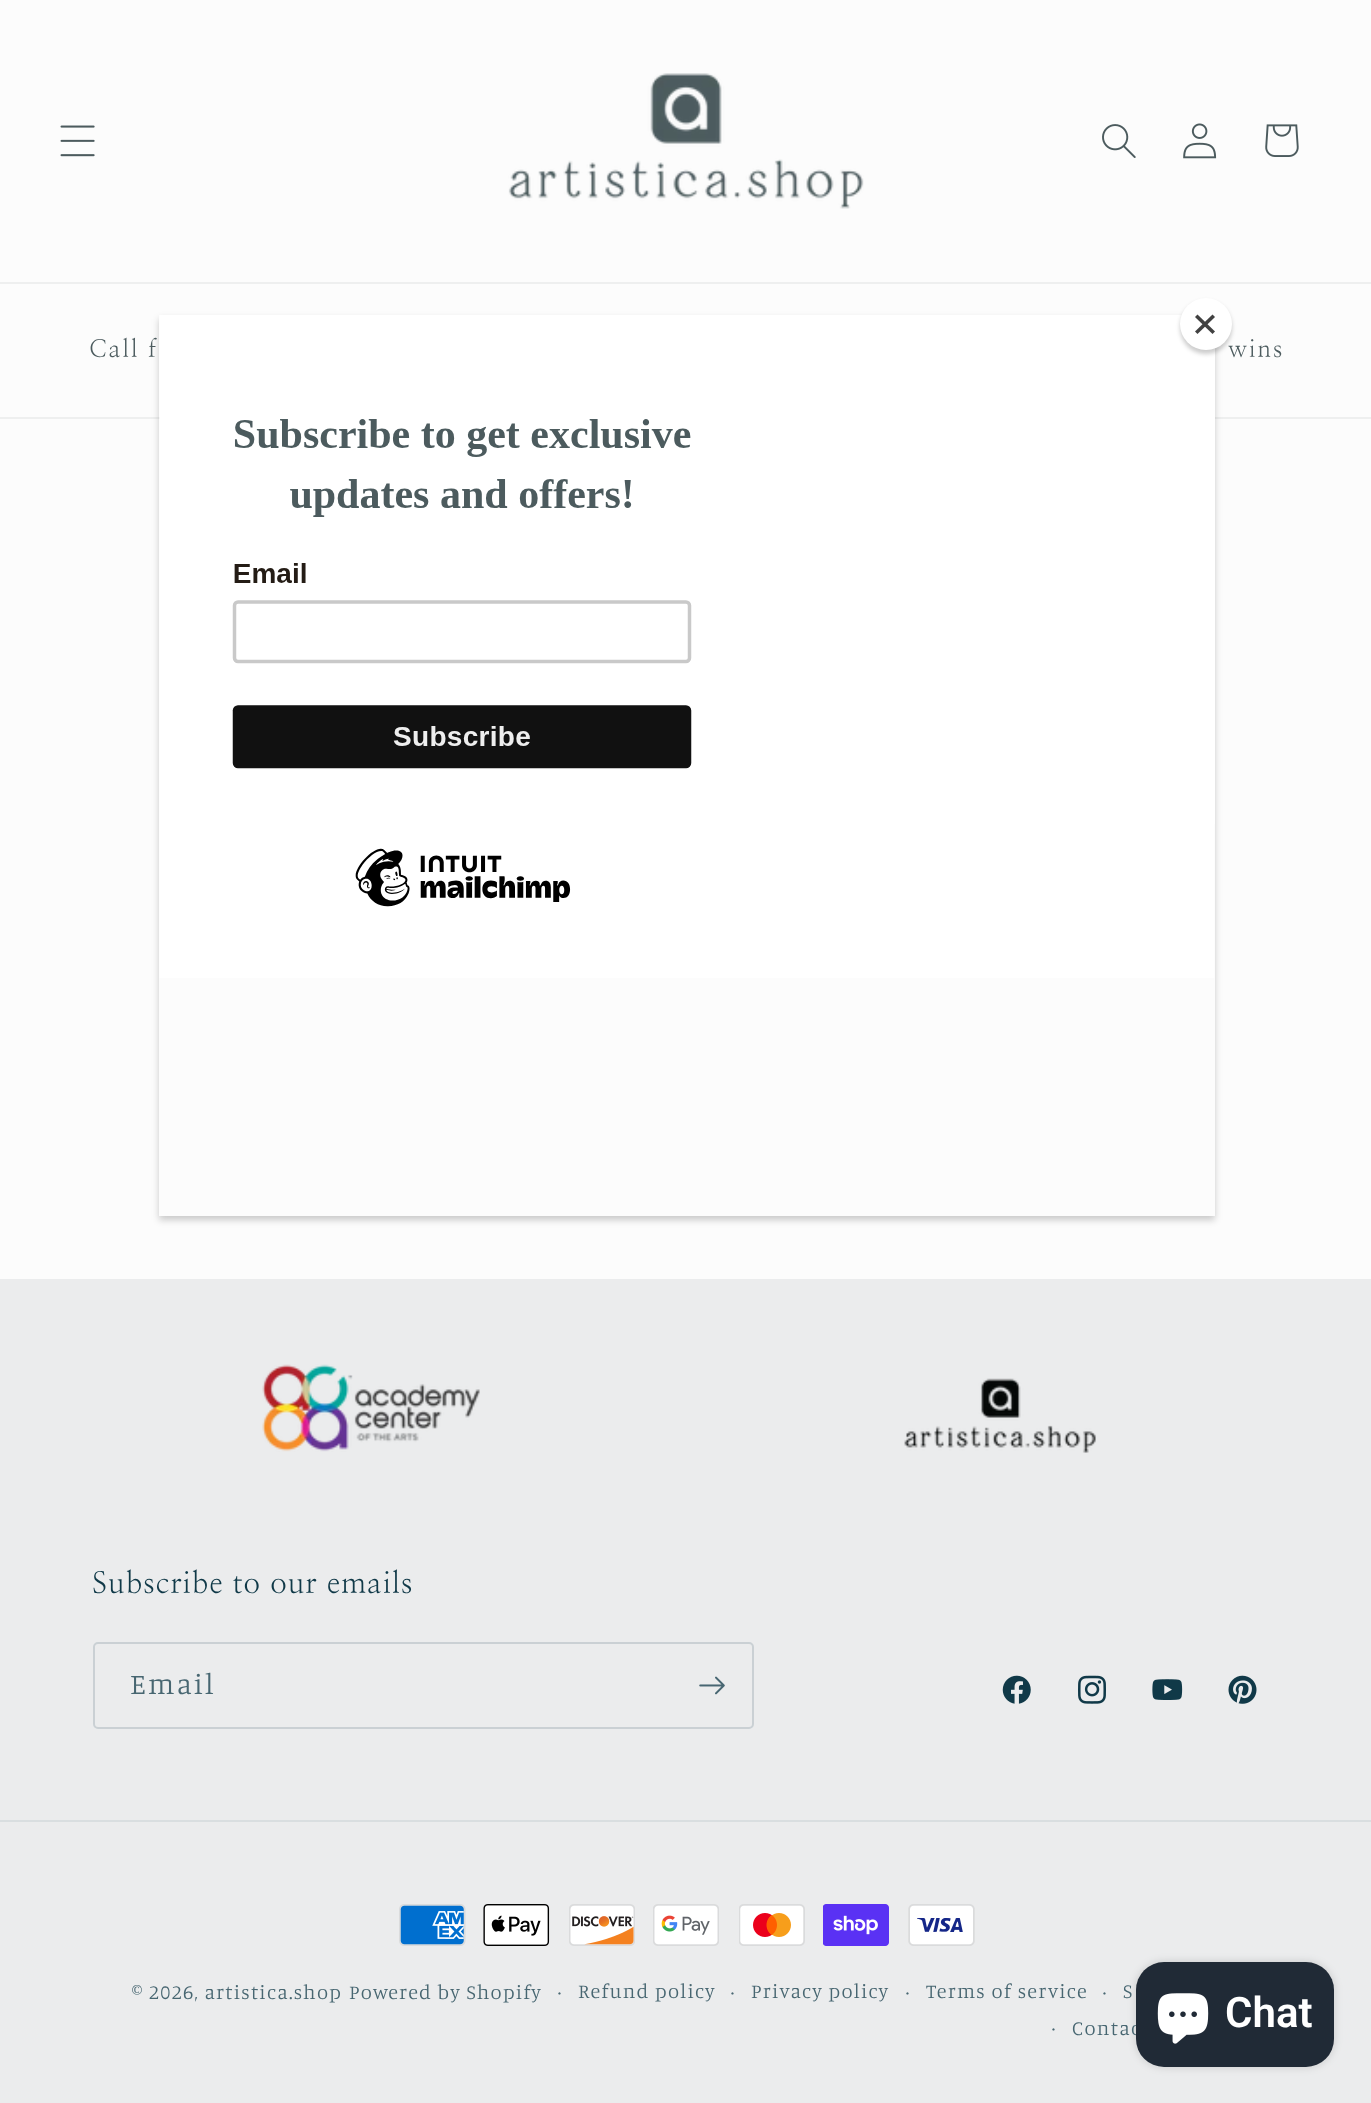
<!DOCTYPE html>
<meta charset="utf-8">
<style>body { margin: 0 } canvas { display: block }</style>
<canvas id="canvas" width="1371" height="2103"></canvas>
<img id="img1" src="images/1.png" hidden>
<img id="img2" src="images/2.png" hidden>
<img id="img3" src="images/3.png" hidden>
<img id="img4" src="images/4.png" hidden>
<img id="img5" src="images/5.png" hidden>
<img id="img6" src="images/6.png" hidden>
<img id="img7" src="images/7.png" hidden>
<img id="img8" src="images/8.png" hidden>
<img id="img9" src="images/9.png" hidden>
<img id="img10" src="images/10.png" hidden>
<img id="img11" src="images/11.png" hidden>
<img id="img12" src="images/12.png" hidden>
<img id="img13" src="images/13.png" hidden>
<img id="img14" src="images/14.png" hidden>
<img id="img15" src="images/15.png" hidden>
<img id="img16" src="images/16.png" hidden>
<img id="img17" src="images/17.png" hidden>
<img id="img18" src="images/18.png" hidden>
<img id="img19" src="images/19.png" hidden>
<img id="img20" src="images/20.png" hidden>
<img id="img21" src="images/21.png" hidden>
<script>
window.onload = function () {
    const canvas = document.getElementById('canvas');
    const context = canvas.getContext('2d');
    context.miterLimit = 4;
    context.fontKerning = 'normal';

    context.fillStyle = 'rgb(252, 252, 252)';
    context.fillRect(0, 0, 1371, 2103);
    context.fillStyle = 'rgb(238, 239, 239)';
    context.fillRect(0, 282, 1371, 2);
    context.drawImage(document.getElementById('img1'), 60, 125, 35, 32);
    context.drawImage(document.getElementById('img2'), 508, 73, 356, 136);
    context.drawImage(document.getElementById('img3'), 1102, 124, 34, 34);
    context.drawImage(document.getElementById('img4'), 1183, 123, 34, 36);
    context.drawImage(document.getElementById('img5'), 1265, 124, 34, 33);
    context.fillRect(0, 417, 1371, 2);
    context.save();
    context.beginPath();
    context.moveTo(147, 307);
    context.lineTo(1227, 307);
    context.lineTo(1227, 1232);
    context.lineTo(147, 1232);
    context.closePath();
    context.moveTo(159, 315);
    context.lineTo(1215, 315);
    context.lineTo(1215, 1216);
    context.lineTo(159, 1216);
    context.closePath();
    context.clip('evenodd');
    context.fillStyle = 'rgba(0, 0, 0, 0.2)';
    context.filter = 'blur(3.5px)';
    context.beginPath();
    context.rect(159, 319, 1056, 901);
    context.fill();
    context.filter = 'none';
    context.restore();
    context.drawImage(document.getElementById('img6'), 159, 315, 1056, 663);
    context.fillStyle = 'rgba(0, 0, 0, 0.2)';
    context.filter = 'blur(2px)';
    context.beginPath();
    context.roundRect(1180, 301, 52, 53, 26);
    context.fill();
    context.filter = 'none';
    context.fillStyle = 'rgb(235, 236, 237)';
    context.fillRect(0, 1279, 1371, 824);
    context.drawImage(document.getElementById('img7'), 262, 1364, 218, 88);
    context.drawImage(document.getElementById('img8'), 904, 1378, 192, 75);
    context.beginPath();
    context.roundRect(94, 1643, 659, 85, 4);
    context.strokeStyle = 'rgba(16, 57, 72, 0.15)';
    context.lineWidth = 2;
    context.stroke();
    context.drawImage(document.getElementById('img9'), 699, 1676, 26, 19);
    context.drawImage(document.getElementById('img10'), 1002, 1675, 29, 29);
    context.drawImage(document.getElementById('img11'), 1078, 1675, 28, 29);
    context.drawImage(document.getElementById('img12'), 1152, 1679, 31, 21);
    context.drawImage(document.getElementById('img13'), 1228, 1675, 29, 29);
    context.fillStyle = 'rgb(217, 222, 224)';
    context.fillRect(0, 1820, 1371, 2);
    context.drawImage(document.getElementById('img14'), 399, 1904, 67, 42);
    context.drawImage(document.getElementById('img15'), 483, 1904, 67, 42);
    context.drawImage(document.getElementById('img16'), 569, 1904, 66, 42);
    context.drawImage(document.getElementById('img17'), 653, 1904, 66, 42);
    context.drawImage(document.getElementById('img18'), 739, 1904, 66, 42);
    context.drawImage(document.getElementById('img19'), 823, 1904, 66, 42);
    context.drawImage(document.getElementById('img20'), 908, 1904, 67, 42);
    context.fillStyle = 'rgba(0, 0, 0, 0.15)';
    context.filter = 'blur(4.5px)';
    context.beginPath();
    context.roundRect(1136, 1962, 198, 105, 28);
    context.fill();
    context.filter = 'none';
    context.letterSpacing = '2px';
    context.font = '24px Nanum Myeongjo';
    context.fillStyle = 'rgb(76, 91, 94)';
    context.fillText('Call f', 89, 357);
    context.fillText('wins', 1228, 357);
    context.fillStyle = 'rgb(255, 255, 255)';
    context.beginPath();
    context.arc(1206, 324, 26, 0, 2 * Math.PI);
    context.fill();
    context.fillStyle = 'rgb(65, 65, 65)';
    context.beginPath();
    context.moveTo(1212.5, 314.5);
    context.lineTo(1215, 317);
    context.lineTo(1197.5, 334);
    context.lineTo(1195, 331.5);
    context.closePath();
    context.fill();
    context.beginPath();
    context.moveTo(1195, 317);
    context.lineTo(1197.5, 314.5);
    context.lineTo(1215, 331.5);
    context.lineTo(1212.5, 334);
    context.closePath();
    context.fill();
    context.letterSpacing = '1.1px';
    context.font = '29.4px Nanum Myeongjo';
    context.fillStyle = 'rgb(16, 57, 72)';
    context.fillText('Subscribe to our emails', 92, 1593);
    context.letterSpacing = '2px';
    context.font = '300 29.4px Manuale';
    context.fillStyle = 'rgb(71, 102, 113)';
    context.fillText('Email', 130, 1694);
    context.letterSpacing = '1.25px';
    context.font = '300 20.25px Manuale';
    context.fillText('© 2026, artistica.shop', 132, 1999);
    context.fillText('Powered by Shopify', 349, 1999);
    context.font = '300 22px Manuale';
    context.fillText('·', 557, 1999);
    context.font = '300 20.25px Manuale';
    context.fillText('Refund policy', 578, 1998);
    context.font = '300 22px Manuale';
    context.fillText('·', 730, 1999);
    context.font = '300 20.25px Manuale';
    context.fillText('Privacy policy', 751, 1998);
    context.font = '300 22px Manuale';
    context.fillText('·', 905, 1999);
    context.font = '300 20.25px Manuale';
    context.fillText('Terms of service', 926, 1998);
    context.font = '300 22px Manuale';
    context.fillText('·', 1102, 1999);
    context.font = '300 20.25px Manuale';
    context.fillText('S', 1123, 1998);
    context.font = '300 22px Manuale';
    context.fillText('·', 1051, 2035);
    context.font = '300 20.25px Manuale';
    context.fillText('Contac', 1072, 2035);
    context.fillStyle = 'rgb(32, 42, 54)';
    context.beginPath();
    context.roundRect(1136, 1962, 198, 105, 28);
    context.fill();
    context.drawImage(document.getElementById('img21'), 1157, 1993, 52, 51);
    context.letterSpacing = '0px';
    context.font = '600 42px Roboto';
    context.fillStyle = 'rgb(255, 255, 255)';
    context.fillText('Chat', 1225, 2027);
};
</script>
